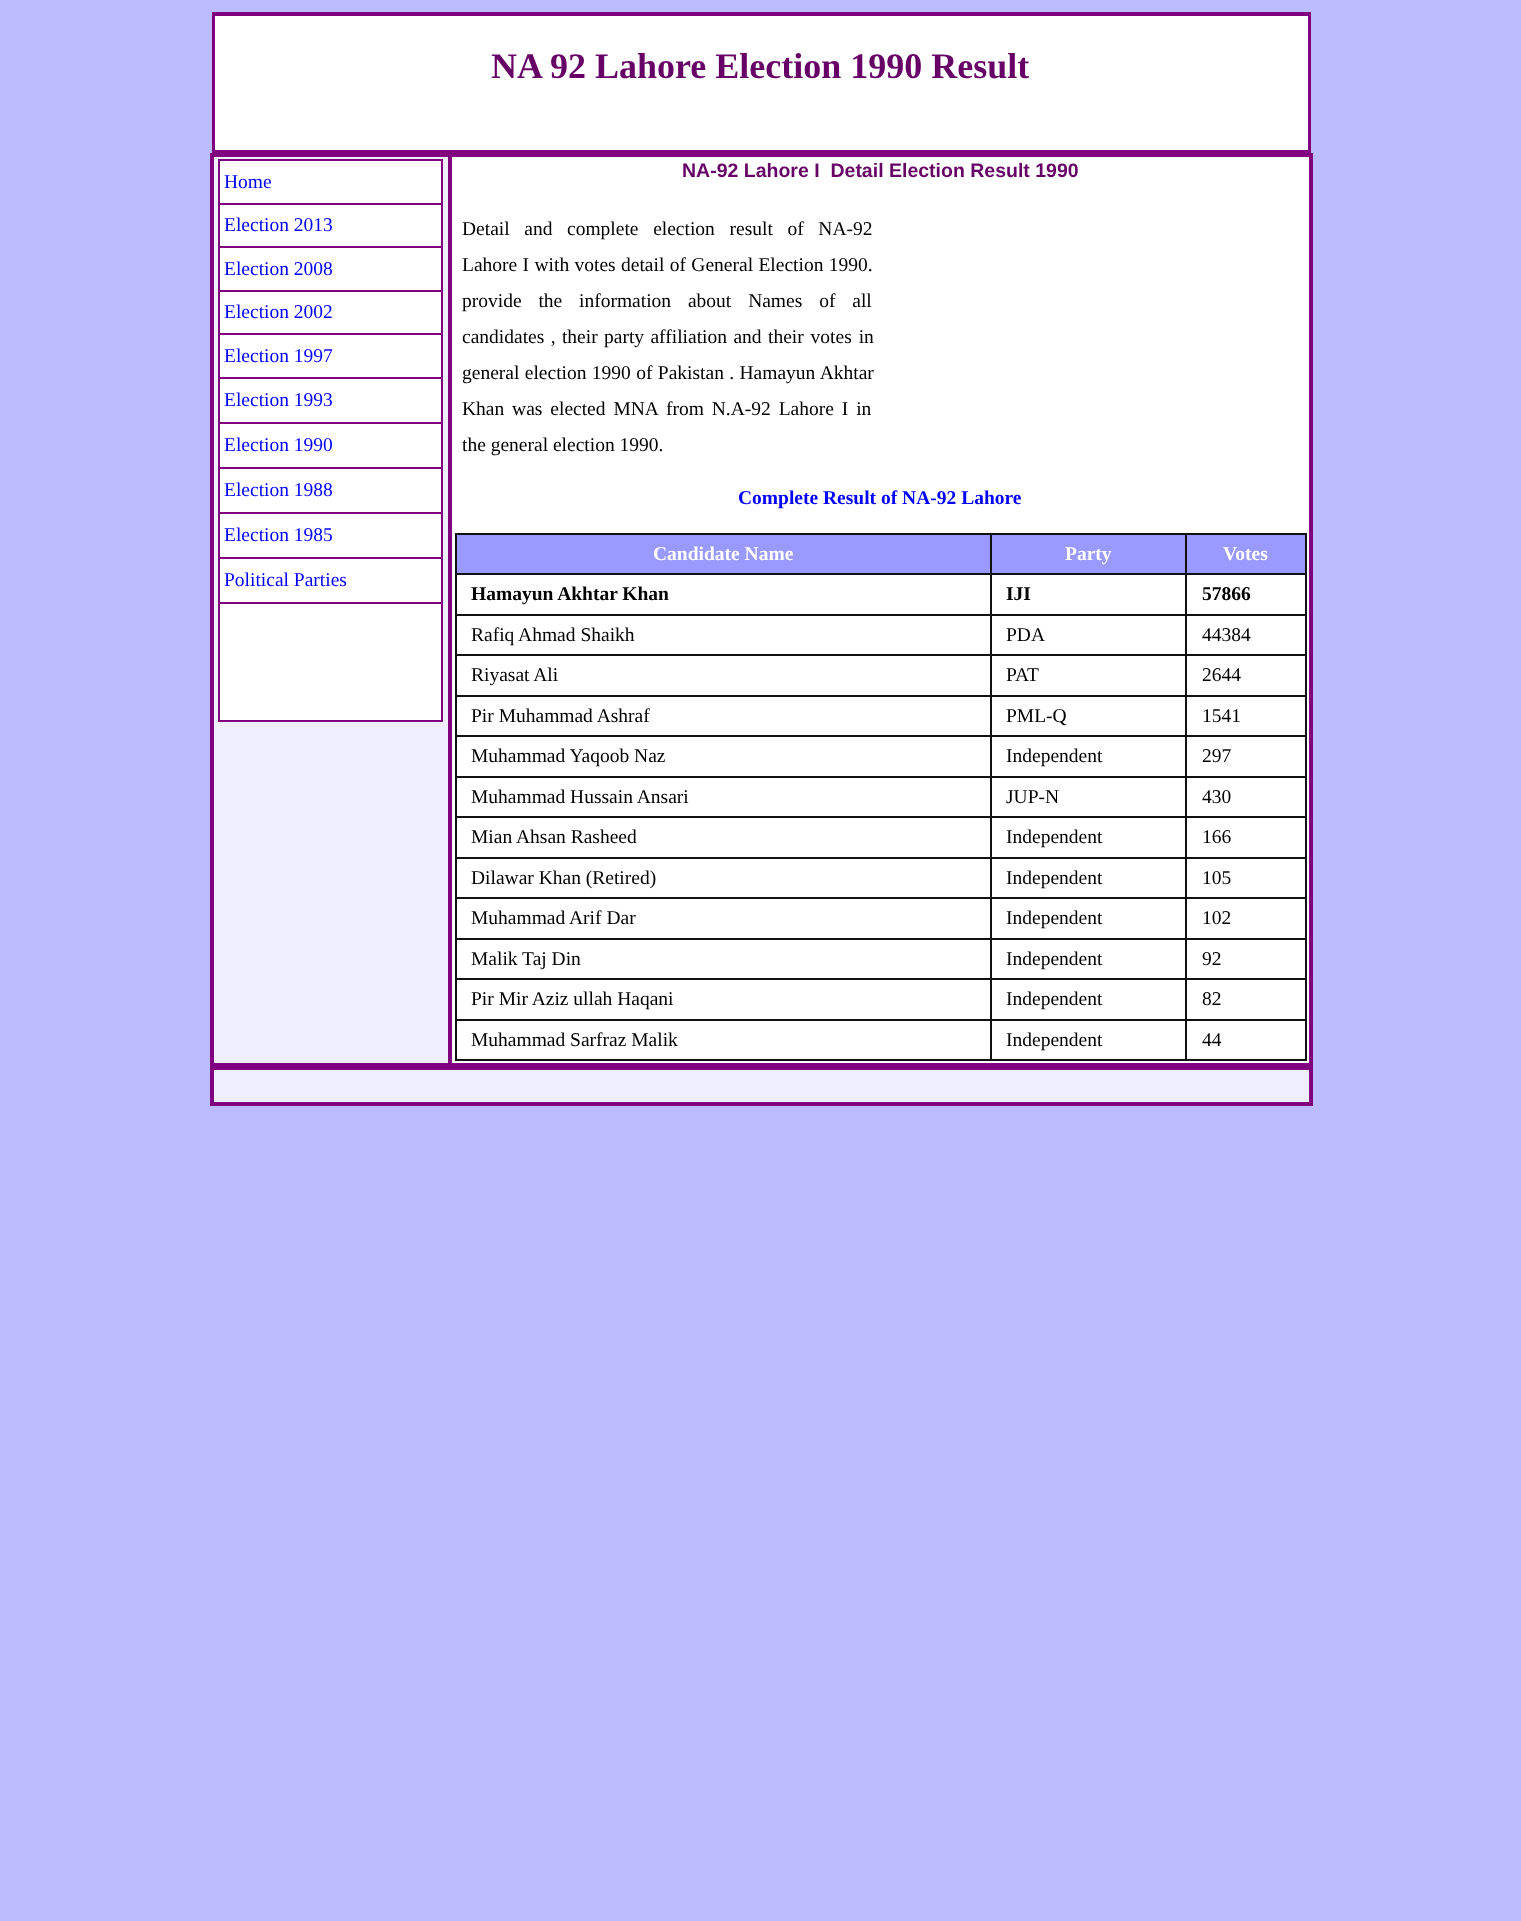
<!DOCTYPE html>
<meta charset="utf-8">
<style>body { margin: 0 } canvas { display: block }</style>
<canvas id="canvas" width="1521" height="1921"></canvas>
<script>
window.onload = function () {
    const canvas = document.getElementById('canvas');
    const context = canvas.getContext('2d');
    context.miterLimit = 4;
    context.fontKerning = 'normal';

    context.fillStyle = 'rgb(187, 187, 255)';
    context.fillRect(0, 0, 1521, 1921);
    context.strokeStyle = 'rgb(128, 0, 128)';
    context.lineWidth = 2;
    context.strokeRect(213, 13, 1097, 139);
    context.fillStyle = 'rgb(255, 255, 255)';
    context.beginPath();
    context.rect(214, 15, 1095, 136);
    context.fill();
    context.stroke();
    context.strokeRect(211, 154, 1101, 912);
    context.fillStyle = 'rgb(238, 238, 255)';
    context.beginPath();
    context.rect(213, 156, 236, 908);
    context.fill();
    context.stroke();
    context.fillStyle = 'rgb(128, 0, 128)';
    context.fillRect(218, 159, 225, 2);
    context.fillRect(441, 159, 2, 563);
    context.fillRect(218, 720, 225, 2);
    context.fillRect(218, 159, 2, 563);
    context.fillStyle = 'rgb(255, 255, 255)';
    context.fillRect(220, 161, 221, 42);
    context.fillRect(220, 205, 221, 41);
    context.fillStyle = 'rgb(128, 0, 128)';
    context.fillRect(218, 203, 225, 2);
    context.fillStyle = 'rgb(255, 255, 255)';
    context.fillRect(220, 248, 221, 42);
    context.fillStyle = 'rgb(128, 0, 128)';
    context.fillRect(218, 246, 225, 2);
    context.fillStyle = 'rgb(255, 255, 255)';
    context.fillRect(220, 292, 221, 41);
    context.fillStyle = 'rgb(128, 0, 128)';
    context.fillRect(218, 290, 225, 2);
    context.fillStyle = 'rgb(255, 255, 255)';
    context.fillRect(220, 335, 221, 42);
    context.fillStyle = 'rgb(128, 0, 128)';
    context.fillRect(218, 333, 225, 2);
    context.fillStyle = 'rgb(255, 255, 255)';
    context.fillRect(220, 379, 221, 43);
    context.fillStyle = 'rgb(128, 0, 128)';
    context.fillRect(218, 377, 225, 2);
    context.fillStyle = 'rgb(255, 255, 255)';
    context.fillRect(220, 424, 221, 43);
    context.fillStyle = 'rgb(128, 0, 128)';
    context.fillRect(218, 422, 225, 2);
    context.fillStyle = 'rgb(255, 255, 255)';
    context.fillRect(220, 469, 221, 43);
    context.fillStyle = 'rgb(128, 0, 128)';
    context.fillRect(218, 467, 225, 2);
    context.fillStyle = 'rgb(255, 255, 255)';
    context.fillRect(220, 514, 221, 43);
    context.fillStyle = 'rgb(128, 0, 128)';
    context.fillRect(218, 512, 225, 2);
    context.fillStyle = 'rgb(255, 255, 255)';
    context.fillRect(220, 559, 221, 43);
    context.fillStyle = 'rgb(128, 0, 128)';
    context.fillRect(218, 557, 225, 2);
    context.fillStyle = 'rgb(255, 255, 255)';
    context.fillRect(220, 604, 221, 116);
    context.fillStyle = 'rgb(128, 0, 128)';
    context.fillRect(218, 602, 225, 2);
    context.fillStyle = 'rgb(255, 255, 255)';
    context.beginPath();
    context.rect(451, 156, 859, 908);
    context.fill();
    context.stroke();
    context.fillStyle = 'rgb(17, 17, 17)';
    context.fillRect(455, 533, 852, 2);
    context.fillRect(1305, 533, 2, 528);
    context.fillRect(455, 1059, 852, 2);
    context.fillRect(455, 533, 2, 528);
    context.fillStyle = 'rgb(153, 153, 255)';
    context.fillRect(457, 535, 533, 38);
    context.fillRect(992, 535, 193, 38);
    context.fillStyle = 'rgb(17, 17, 17)';
    context.fillRect(1185, 573, 122, 2);
    context.fillRect(1185, 614, 122, 2);
    context.fillRect(1185, 654, 122, 2);
    context.fillRect(1185, 695, 122, 2);
    context.fillRect(1185, 735, 122, 2);
    context.fillRect(1185, 776, 122, 2);
    context.fillRect(1185, 816, 122, 2);
    context.fillRect(1185, 857, 122, 2);
    context.fillRect(1185, 897, 122, 2);
    context.fillRect(1185, 938, 122, 2);
    context.fillRect(1185, 978, 122, 2);
    context.fillRect(1185, 1019, 122, 2);
    context.fillRect(1185, 1019, 2, 42);
    context.fillRect(990, 1019, 197, 2);
    context.fillRect(1185, 978, 2, 42);
    context.fillRect(990, 978, 197, 2);
    context.fillRect(1185, 938, 2, 42);
    context.fillRect(990, 938, 197, 2);
    context.fillRect(1185, 897, 2, 42);
    context.fillRect(990, 897, 197, 2);
    context.fillRect(1185, 857, 2, 42);
    context.fillRect(990, 857, 197, 2);
    context.fillRect(1185, 816, 2, 42);
    context.fillRect(990, 816, 197, 2);
    context.fillRect(1185, 776, 2, 42);
    context.fillRect(990, 776, 197, 2);
    context.fillRect(1185, 735, 2, 42);
    context.fillRect(990, 735, 197, 2);
    context.fillRect(1185, 695, 2, 42);
    context.fillRect(990, 695, 197, 2);
    context.fillRect(1185, 654, 2, 42);
    context.fillRect(990, 654, 197, 2);
    context.fillRect(1185, 614, 2, 42);
    context.fillRect(990, 614, 197, 2);
    context.fillRect(1185, 573, 2, 42);
    context.fillRect(990, 573, 197, 2);
    context.fillRect(990, 1019, 2, 42);
    context.fillRect(455, 1019, 537, 2);
    context.fillRect(990, 978, 2, 42);
    context.fillRect(455, 978, 537, 2);
    context.fillRect(990, 938, 2, 42);
    context.fillRect(455, 938, 537, 2);
    context.fillRect(990, 897, 2, 42);
    context.fillRect(455, 897, 537, 2);
    context.fillRect(990, 857, 2, 42);
    context.fillRect(455, 857, 537, 2);
    context.fillRect(990, 816, 2, 42);
    context.fillRect(455, 816, 537, 2);
    context.fillRect(990, 776, 2, 42);
    context.fillRect(455, 776, 537, 2);
    context.fillRect(990, 735, 2, 42);
    context.fillRect(455, 735, 537, 2);
    context.fillRect(990, 695, 2, 42);
    context.fillRect(455, 695, 537, 2);
    context.fillRect(990, 654, 2, 42);
    context.fillRect(455, 654, 537, 2);
    context.fillRect(990, 614, 2, 42);
    context.fillRect(455, 614, 537, 2);
    context.fillRect(990, 573, 2, 42);
    context.fillRect(455, 573, 537, 2);
    context.fillRect(990, 533, 2, 42);
    context.fillStyle = 'rgb(153, 153, 255)';
    context.fillRect(1187, 535, 118, 38);
    context.fillStyle = 'rgb(17, 17, 17)';
    context.fillRect(1185, 533, 2, 42);
    context.strokeRect(211, 1068, 1101, 37);
    context.fillStyle = 'rgb(238, 238, 255)';
    context.beginPath();
    context.rect(213, 1069, 1097, 34);
    context.fill();
    context.stroke();
    context.font = 'bold 36px Liberation Serif';
    context.fillStyle = 'rgb(102, 0, 102)';
    context.fillText('NA 92 Lahore Election 1990 Result', 491, 78);
    context.font = '19.5px Liberation Serif';
    context.fillStyle = 'rgb(0, 0, 238)';
    context.fillText('Home', 224, 188);
    context.fillText('Election 2013', 224, 231);
    context.fillText('Election 2008', 224, 275);
    context.fillStyle = 'rgb(0, 0, 255)';
    context.fillText('Election 2002', 224, 318);
    context.fillText('Election 1997', 224, 362);
    context.fillText('Election 1993', 224, 406);
    context.fillText('Election 1990', 224, 451);
    context.fillText('Election 1988', 224, 496);
    context.fillText('Election 1985', 224, 541);
    context.fillText('Political Parties', 224, 586);
    context.font = 'bold 19.5px Liberation Sans';
    context.fillStyle = 'rgb(102, 0, 102)';
    context.fillText('NA-92 Lahore I  Detail Election Result 1990', 682, 177);
    context.wordSpacing = '9.75px';
    context.font = '19.5px Liberation Serif';
    context.fillStyle = 'rgb(0, 0, 0)';
    context.fillText('Detail and complete election result of NA-92', 462, 235);
    context.wordSpacing = '0.5px';
    context.fillText('Lahore I with votes detail of General Election 1990.', 462, 271);
    context.wordSpacing = '12px';
    context.fillText('provide the', 462, 307);
    context.fillText('information about Names of all', 579, 307);
    context.wordSpacing = '1.5px';
    context.fillText('candidates , their party affiliation and', 462, 343);
    context.wordSpacing = '2px';
    context.fillText('their votes in', 768, 343);
    context.wordSpacing = '0.5px';
    context.fillText('general election 1990 of Pakistan . Hamayun Akhtar', 462, 379);
    context.wordSpacing = '3px';
    context.fillText('Khan was elected MNA', 462, 415);
    context.fillText('from N.A-92 Lahore I in', 666, 415);
    context.wordSpacing = '0px';
    context.fillText('the general election 1990.', 462, 451);
    context.font = 'bold 19.5px Liberation Serif';
    context.fillStyle = 'rgb(0, 0, 255)';
    context.fillText('Complete Result of NA-92 Lahore', 738, 504);
    context.fillStyle = 'rgb(255, 255, 255)';
    context.fillText('Candidate Name', 653, 560);
    context.fillText('Party', 1065, 560);
    context.fillText('Votes', 1223, 560);
    context.fillStyle = 'rgb(0, 0, 0)';
    context.fillText('Hamayun Akhtar Khan', 471, 600);
    context.fillText('IJI', 1006, 600);
    context.fillText('57866', 1202, 600);
    context.font = '19.5px Liberation Serif';
    context.fillText('Rafiq Ahmad Shaikh', 471, 641);
    context.fillText('PDA', 1006, 641);
    context.fillText('44384', 1202, 641);
    context.fillText('Riyasat Ali', 471, 681);
    context.fillText('PAT', 1006, 681);
    context.fillText('2644', 1202, 681);
    context.fillText('Pir Muhammad Ashraf', 471, 722);
    context.fillText('PML-Q', 1006, 722);
    context.fillText('1541', 1202, 722);
    context.fillText('Muhammad Yaqoob Naz', 471, 762);
    context.fillText('Independent', 1006, 762);
    context.fillText('297', 1202, 762);
    context.fillText('Muhammad Hussain Ansari', 471, 803);
    context.fillText('JUP-N', 1006, 803);
    context.fillText('430', 1202, 803);
    context.fillText('Mian Ahsan Rasheed', 471, 843);
    context.fillText('Independent', 1006, 843);
    context.fillText('166', 1202, 843);
    context.fillText('Dilawar Khan (Retired)', 471, 884);
    context.fillText('Independent', 1006, 884);
    context.fillText('105', 1202, 884);
    context.fillText('Muhammad Arif Dar', 471, 924);
    context.fillText('Independent', 1006, 924);
    context.fillText('102', 1202, 924);
    context.fillText('Malik Taj Din', 471, 965);
    context.fillText('Independent', 1006, 965);
    context.fillText('92', 1202, 965);
    context.fillText('Pir Mir Aziz ullah Haqani', 471, 1005);
    context.fillText('Independent', 1006, 1005);
    context.fillText('82', 1202, 1005);
    context.fillText('Muhammad Sarfraz Malik', 471, 1046);
    context.fillText('Independent', 1006, 1046);
    context.fillText('44', 1202, 1046);
};
</script>
